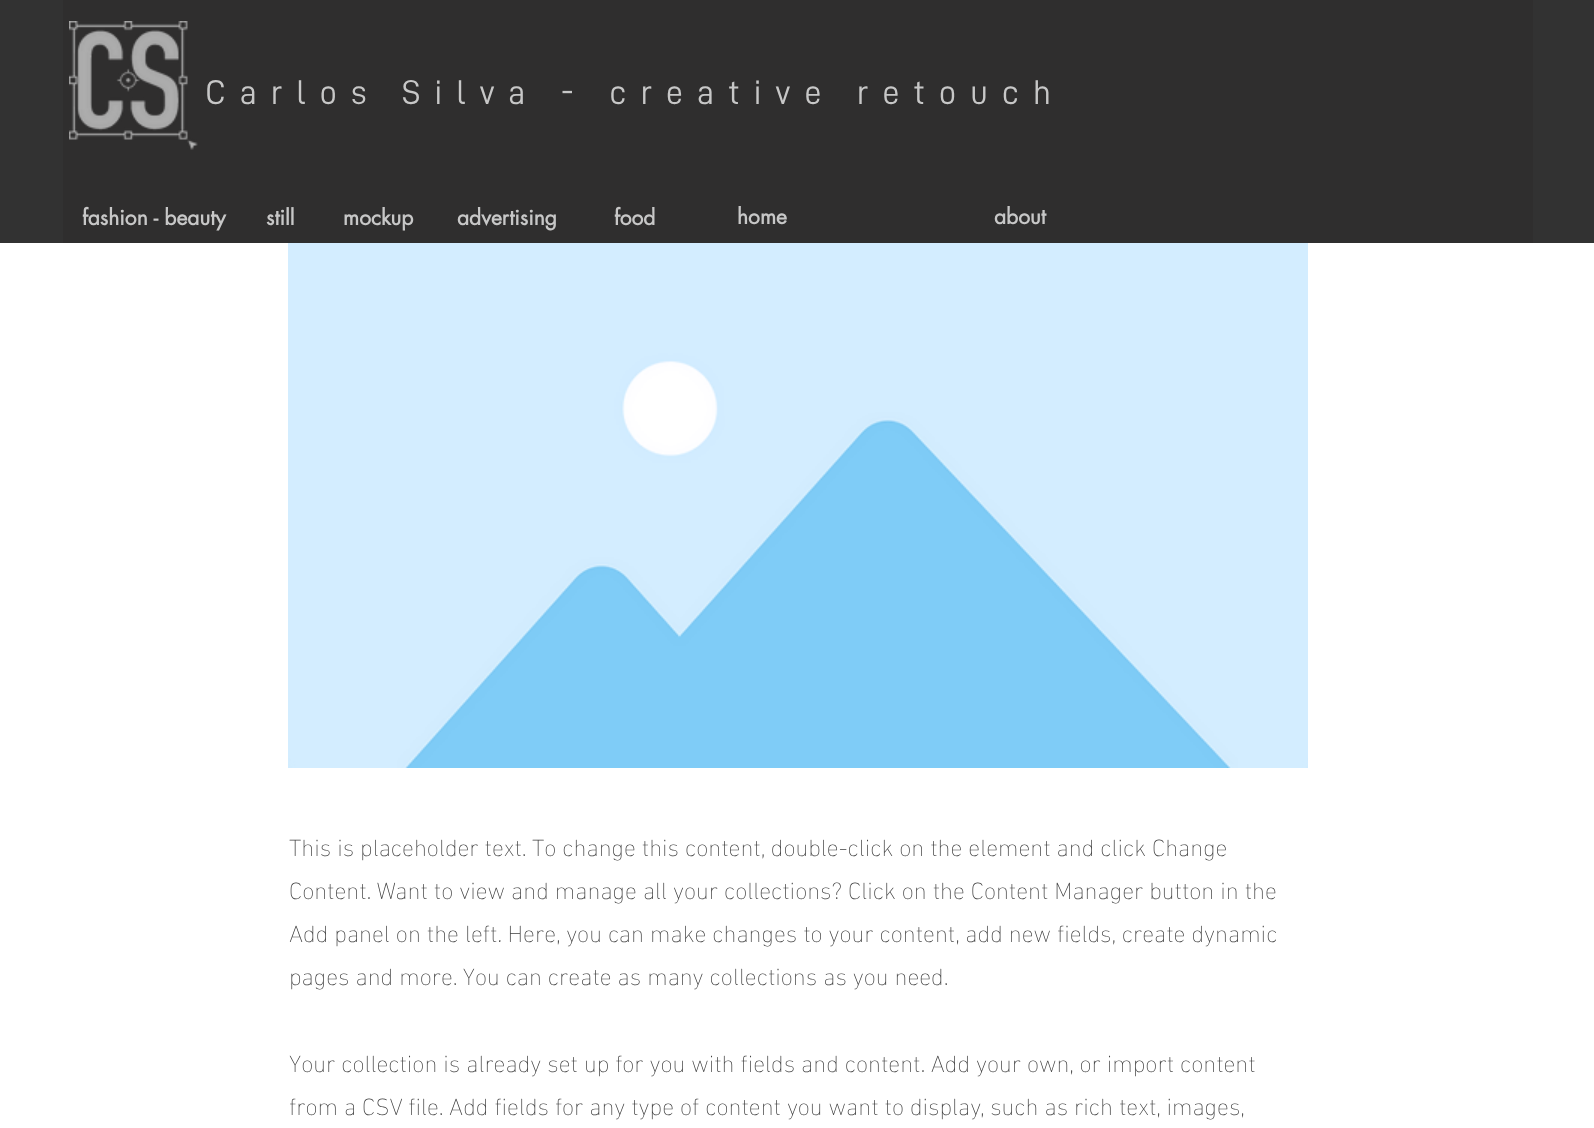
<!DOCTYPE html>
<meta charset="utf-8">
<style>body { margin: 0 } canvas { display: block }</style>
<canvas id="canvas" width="1594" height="1128"></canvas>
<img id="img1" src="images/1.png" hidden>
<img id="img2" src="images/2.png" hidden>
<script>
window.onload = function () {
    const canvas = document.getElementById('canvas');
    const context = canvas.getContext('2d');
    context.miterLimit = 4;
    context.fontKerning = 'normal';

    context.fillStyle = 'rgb(255, 255, 255)';
    context.fillRect(0, 0, 1594, 1128);
    context.fillStyle = 'rgb(50, 50, 50)';
    context.fillRect(0, 0, 1594, 243);
    context.fillStyle = 'rgb(47, 46, 46)';
    context.fillRect(63, 0, 1470, 243);
    context.drawImage(document.getElementById('img1'), 69, 21, 129, 129);
    context.drawImage(document.getElementById('img2'), 288, 243, 1020, 525);
    context.letterSpacing = '13.8px';
    context.font = '34.5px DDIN';
    context.fillStyle = 'rgb(199, 199, 199)';
    context.fillText('Carlos Silva - creative retouch', 205, 104);
    context.letterSpacing = '0px';
    context.font = 'bold 21px futura';
    context.fillText('fashion - beauty', 82, 225);
    context.fillText('still', 266, 225);
    context.fillText('mockup', 343, 225);
    context.fillText('advertising', 457, 225);
    context.fillText('food', 614, 225);
    context.fillText('home', 737, 224);
    context.fillText('about', 994, 224);
    context.font = '200 24px "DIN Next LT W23"';
    context.fillStyle = 'rgb(65, 65, 65)';
    context.fillText('This is placeholder text. To change this content, double-click on the element and click Change', 289, 856);
    context.fillText('Content. Want to view and manage all your collections? Click on the Content Manager button in the', 289, 899);
    context.fillText('Add panel on the left. Here, you can make changes to your content, add new fields, create dynamic', 289, 942);
    context.fillText('pages and more. You can create as many collections as you need.', 289, 985);
    context.fillText('Your collection is already set up for you with fields and content. Add your own, or import content', 289, 1072);
    context.fillText('from a CSV file. Add fields for any type of content you want to display, such as rich text, images,', 289, 1115);
};
</script>
